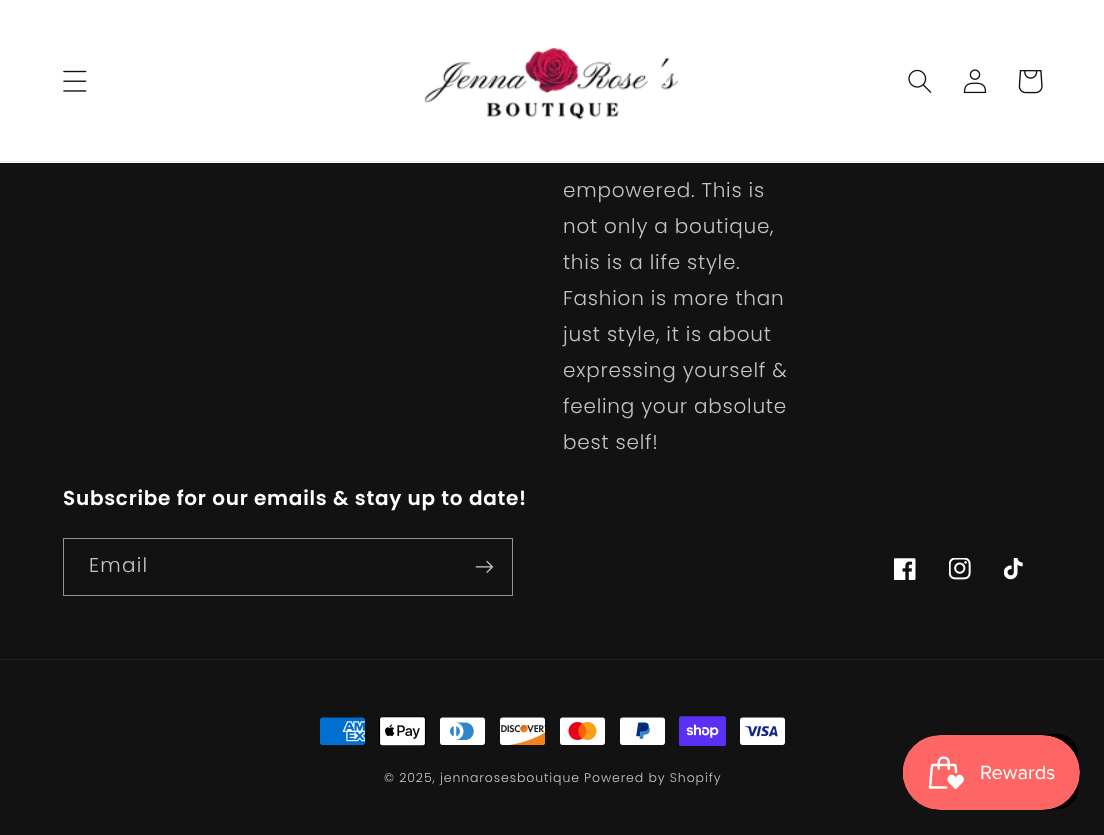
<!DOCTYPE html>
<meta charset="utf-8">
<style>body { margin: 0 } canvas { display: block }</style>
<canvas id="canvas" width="1104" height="835"></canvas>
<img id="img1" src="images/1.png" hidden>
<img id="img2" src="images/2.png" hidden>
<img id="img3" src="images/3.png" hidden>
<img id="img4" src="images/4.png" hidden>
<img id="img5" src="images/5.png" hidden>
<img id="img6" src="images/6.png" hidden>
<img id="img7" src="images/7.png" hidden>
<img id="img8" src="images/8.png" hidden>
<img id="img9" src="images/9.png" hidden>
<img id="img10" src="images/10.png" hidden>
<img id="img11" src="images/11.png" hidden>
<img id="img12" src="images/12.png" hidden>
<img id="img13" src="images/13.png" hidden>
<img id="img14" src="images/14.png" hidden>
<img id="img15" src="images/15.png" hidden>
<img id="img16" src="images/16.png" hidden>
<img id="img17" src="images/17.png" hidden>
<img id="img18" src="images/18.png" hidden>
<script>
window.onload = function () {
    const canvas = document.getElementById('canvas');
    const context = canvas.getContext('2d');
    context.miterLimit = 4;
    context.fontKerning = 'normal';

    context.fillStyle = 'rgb(18, 18, 18)';
    context.fillRect(0, 0, 1104, 835);
    context.fillStyle = 'rgb(255, 255, 255)';
    context.fillRect(0, 0, 1104, 163);
    context.fillStyle = 'rgb(236, 236, 236)';
    context.fillRect(0, 161, 1104, 1);
    context.drawImage(document.getElementById('img1'), 63, 70, 24, 22);
    context.drawImage(document.getElementById('img2'), 424, 47, 255, 73);
    context.drawImage(document.getElementById('img3'), 908, 69, 24, 24);
    context.drawImage(document.getElementById('img4'), 963, 69, 24, 25);
    context.drawImage(document.getElementById('img5'), 1018, 70, 25, 24);
    context.strokeStyle = 'rgb(148, 148, 148)';
    context.strokeRect(63.5, 538.5, 449, 57);
    context.drawImage(document.getElementById('img6'), 475, 560, 18, 13);
    context.drawImage(document.getElementById('img7'), 894, 558, 22, 22);
    context.drawImage(document.getElementById('img8'), 949, 558, 22, 22);
    context.drawImage(document.getElementById('img9'), 1004, 558, 19, 22);
    context.fillStyle = 'rgb(37, 37, 37)';
    context.fillRect(0, 659, 1104, 1);
    context.drawImage(document.getElementById('img10'), 320, 717, 45, 28);
    context.drawImage(document.getElementById('img11'), 379, 716, 47, 30);
    context.drawImage(document.getElementById('img12'), 440, 717, 45, 28);
    context.drawImage(document.getElementById('img13'), 500, 717, 46, 28);
    context.drawImage(document.getElementById('img14'), 560, 717, 45, 28);
    context.drawImage(document.getElementById('img15'), 620, 717, 45, 28);
    context.drawImage(document.getElementById('img16'), 679, 716, 47, 30);
    context.drawImage(document.getElementById('img17'), 740, 717, 45, 28);
    context.fillStyle = 'rgb(0, 0, 0)';
    context.beginPath();
    context.roundRect(936, 734, 142, 75, 20);
    context.fill();
    context.drawImage(document.getElementById('img18'), 902, 735, 178, 75);
    context.letterSpacing = '0.75px';
    context.font = '300 20px Poppins';
    context.fillStyle = 'rgb(196, 196, 196)';
    context.fillText('empowered. This is', 563, 197);
    context.fillText('not only a boutique,', 563, 233);
    context.fillText('this is a life style.', 563, 269);
    context.fillText('Fashion is more than', 563, 305);
    context.fillText('just style, it is about', 563, 341);
    context.fillText('expressing yourself &', 563, 377);
    context.fillText('feeling your absolute', 563, 413);
    context.fillText('best self!', 563, 449);
    context.font = '600 20px Poppins';
    context.fillStyle = 'rgb(255, 255, 255)';
    context.fillText('Subscribe for our emails & stay up to date!', 63, 505);
    context.letterSpacing = '1.25px';
    context.font = '300 20px Poppins';
    context.fillStyle = 'rgb(196, 196, 196)';
    context.fillText('Email', 89, 572);
    context.letterSpacing = '0.9px';
    context.font = '300 12.5px Poppins';
    context.fillText('© 2025, jennarosesboutique', 384, 782);
    context.fillText('Powered by Shopify', 584, 782);
};
</script>
